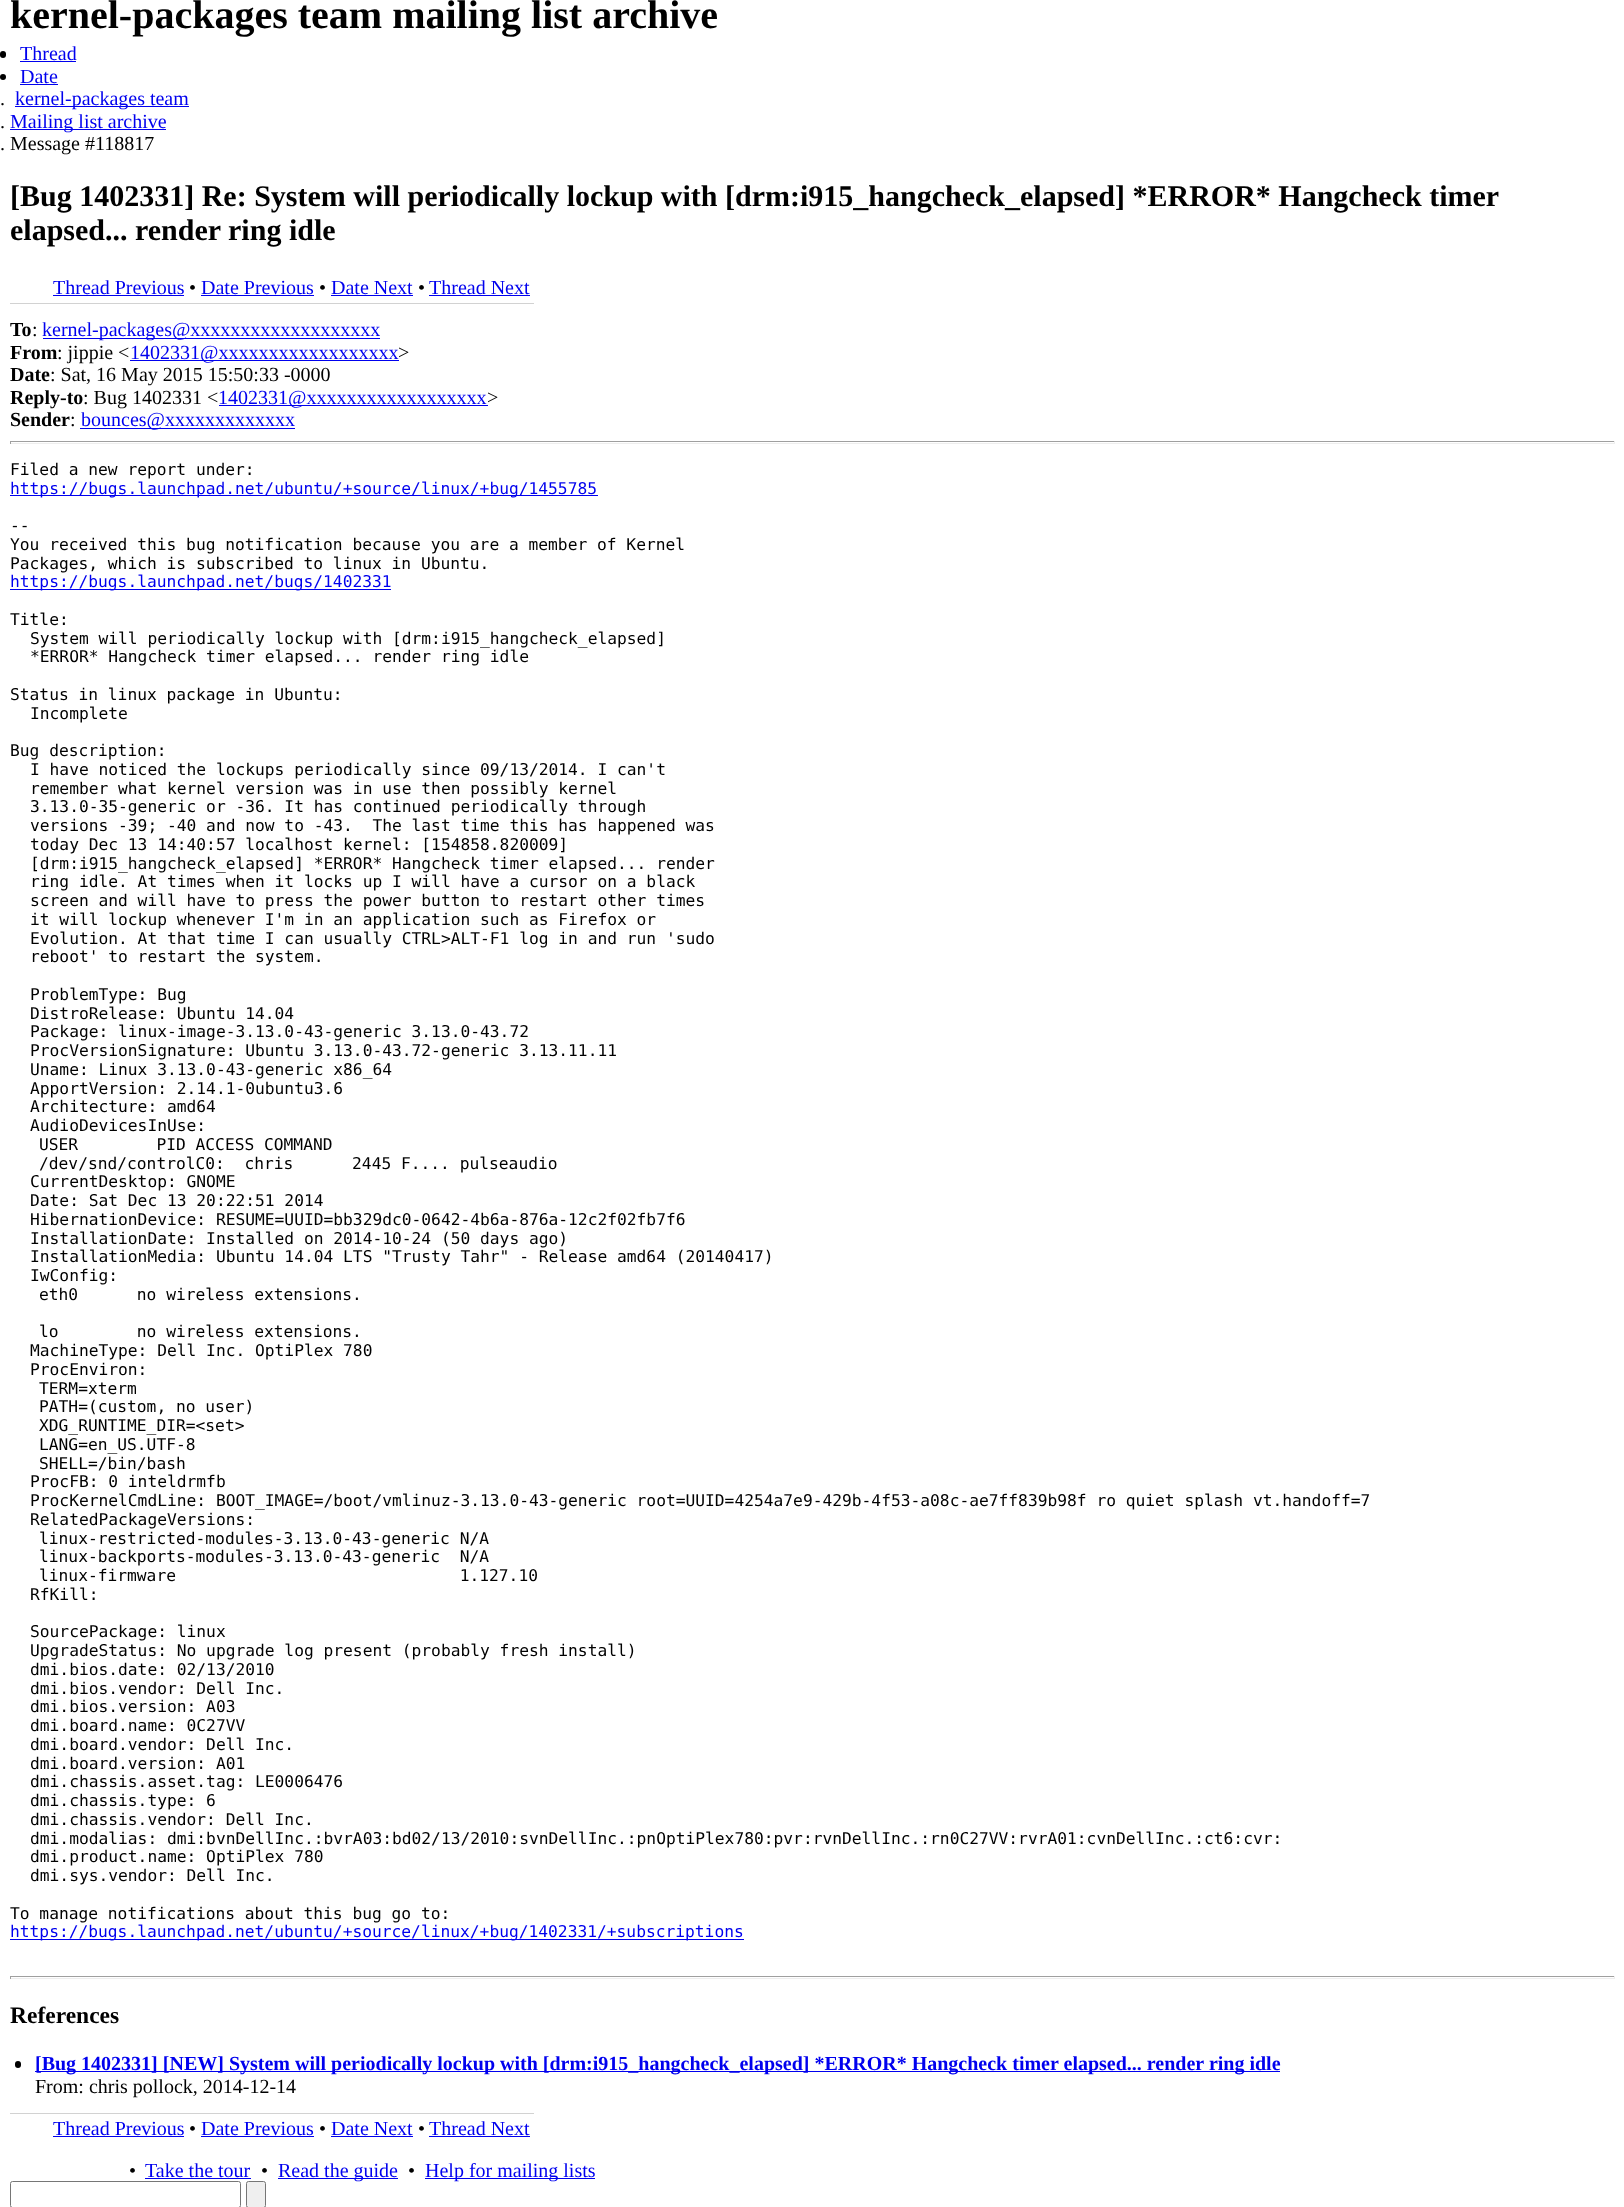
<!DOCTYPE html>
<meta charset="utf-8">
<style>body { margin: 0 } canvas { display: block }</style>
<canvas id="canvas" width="1624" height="2207"></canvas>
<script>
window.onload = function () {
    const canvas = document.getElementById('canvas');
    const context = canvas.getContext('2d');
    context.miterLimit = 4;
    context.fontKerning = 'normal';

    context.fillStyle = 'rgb(255, 255, 255)';
    context.fillRect(0, 0, 1624, 2207);
    context.fillStyle = 'rgb(0, 0, 0)';
    context.beginPath();
    context.roundRect(0, 51, 6, 7, 3);
    context.fill();
    context.fillStyle = 'rgb(0, 0, 238)';
    context.fillRect(20, 61, 56, 1);
    context.fillStyle = 'rgb(0, 0, 0)';
    context.beginPath();
    context.arc(3, 77, 3, 0, 2 * Math.PI);
    context.fill();
    context.fillStyle = 'rgb(0, 0, 238)';
    context.fillRect(20, 84, 38, 1);
    context.fillRect(15, 106, 174, 1);
    context.fillRect(10, 129, 156, 1);
    context.fillStyle = 'rgb(210, 210, 210)';
    context.fillRect(10, 303, 524, 1);
    context.fillStyle = 'rgb(0, 0, 238)';
    context.fillRect(53, 295, 131, 1);
    context.fillRect(201, 295, 113, 1);
    context.fillRect(331, 295, 82, 1);
    context.fillRect(429, 295, 101, 1);
    context.fillRect(43, 338, 337, 1);
    context.fillRect(130, 360, 269, 1);
    context.fillRect(219, 405, 269, 1);
    context.fillRect(80, 428, 215, 1);
    context.fillStyle = 'rgb(159, 159, 159)';
    context.fillRect(10, 441, 1605, 1);
    context.fillStyle = 'rgb(238, 238, 238)';
    context.fillRect(1614, 441, 1, 3);
    context.fillRect(10, 443, 1605, 1);
    context.fillStyle = 'rgb(159, 159, 159)';
    context.fillRect(10, 441, 1, 3);
    context.fillStyle = 'rgb(0, 0, 238)';
    context.fillRect(10, 495, 588, 1);
    context.fillRect(10, 589, 381, 1);
    context.fillRect(10, 1939, 734, 1);
    context.fillStyle = 'rgb(159, 159, 159)';
    context.fillRect(10, 1976, 1605, 1);
    context.fillStyle = 'rgb(238, 238, 238)';
    context.fillRect(1614, 1976, 1, 3);
    context.fillRect(10, 1978, 1605, 1);
    context.fillStyle = 'rgb(159, 159, 159)';
    context.fillRect(10, 1976, 1, 3);
    context.fillStyle = 'rgb(0, 0, 0)';
    context.beginPath();
    context.roundRect(15, 2061, 6, 7, 3);
    context.fill();
    context.fillStyle = 'rgb(0, 0, 238)';
    context.fillRect(35, 2071, 1245, 1);
    context.fillStyle = 'rgb(210, 210, 210)';
    context.fillRect(10, 2113, 524, 1);
    context.fillStyle = 'rgb(0, 0, 238)';
    context.fillRect(53, 2136, 131, 1);
    context.fillRect(201, 2136, 113, 1);
    context.fillRect(331, 2136, 82, 1);
    context.fillRect(429, 2136, 101, 1);
    context.fillRect(145, 2178, 106, 1);
    context.fillRect(278, 2178, 120, 1);
    context.fillRect(425, 2178, 170, 1);
    context.beginPath();
    context.roundRect(10.5, 2181.5, 230, 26, 2);
    context.strokeStyle = 'rgb(118, 118, 118)';
    context.stroke();
    context.fillStyle = 'rgb(239, 239, 239)';
    context.beginPath();
    context.roundRect(246.5, 2181.5, 19, 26, 2);
    context.fill();
    context.stroke();
    context.font = 'bold 40px Liberation Serif';
    context.fillStyle = 'rgb(0, 0, 0)';
    context.fillText('kernel-packages team mailing list archive', 10, 28);
    context.font = '20px Liberation Serif';
    context.fillStyle = 'rgb(0, 0, 238)';
    context.fillText('Thread', 20, 60);
    context.fillText('Date', 20, 83);
    context.fillStyle = 'rgb(0, 0, 0)';
    context.fillText('.', 0, 105);
    context.fillStyle = 'rgb(0, 0, 238)';
    context.fillText('kernel-packages team', 15, 105);
    context.fillStyle = 'rgb(0, 0, 0)';
    context.fillText('.', 0, 128);
    context.fillStyle = 'rgb(0, 0, 238)';
    context.fillText('Mailing list archive', 10, 128);
    context.fillStyle = 'rgb(0, 0, 0)';
    context.fillText('. Message #118817', 0, 150);
    context.font = 'bold 30px Liberation Serif';
    context.fillText('[Bug 1402331] Re: System will periodically lockup with [drm:i915_hangcheck_elapsed] *ERROR* Hangcheck timer', 10, 206);
    context.fillText('elapsed... render ring idle', 10, 240);
    context.font = '20px Liberation Serif';
    context.fillStyle = 'rgb(0, 0, 238)';
    context.fillText('Thread Previous', 53, 294);
    context.fillStyle = 'rgb(0, 0, 0)';
    context.fillText('•', 189, 294);
    context.fillStyle = 'rgb(0, 0, 238)';
    context.fillText('Date Previous', 201, 294);
    context.fillStyle = 'rgb(0, 0, 0)';
    context.fillText('•', 319, 294);
    context.fillStyle = 'rgb(0, 0, 238)';
    context.fillText('Date Next', 331, 294);
    context.fillStyle = 'rgb(0, 0, 0)';
    context.fillText('•', 418, 294);
    context.fillStyle = 'rgb(0, 0, 238)';
    context.fillText('Thread Next', 429, 294);
    context.font = 'bold 20px Liberation Serif';
    context.fillStyle = 'rgb(0, 0, 0)';
    context.fillText('To', 10, 336);
    context.font = '20px Liberation Serif';
    context.fillText(':', 32, 336);
    context.fillStyle = 'rgb(0, 0, 238)';
    context.fillText('kernel-packages@xxxxxxxxxxxxxxxxxxx', 42, 336);
    context.font = 'bold 20px Liberation Serif';
    context.fillStyle = 'rgb(0, 0, 0)';
    context.fillText('From', 10, 359);
    context.font = '20px Liberation Serif';
    context.fillText(': jippie <', 57, 359);
    context.fillStyle = 'rgb(0, 0, 238)';
    context.fillText('1402331@xxxxxxxxxxxxxxxxxx', 130, 359);
    context.fillStyle = 'rgb(0, 0, 0)';
    context.fillText('>', 398, 359);
    context.font = 'bold 20px Liberation Serif';
    context.fillText('Date', 10, 381);
    context.font = '20px Liberation Serif';
    context.fillText(': Sat, 16 May 2015 15:50:33 -0000', 50, 381);
    context.font = 'bold 20px Liberation Serif';
    context.fillText('Reply-to', 10, 404);
    context.font = '20px Liberation Serif';
    context.fillText(': Bug 1402331 <', 83, 404);
    context.fillStyle = 'rgb(0, 0, 238)';
    context.fillText('1402331@xxxxxxxxxxxxxxxxxx', 218, 404);
    context.fillStyle = 'rgb(0, 0, 0)';
    context.fillText('>', 487, 404);
    context.font = 'bold 20px Liberation Serif';
    context.fillText('Sender', 10, 426);
    context.font = '20px Liberation Serif';
    context.fillText(':', 70, 426);
    context.fillStyle = 'rgb(0, 0, 238)';
    context.fillText('bounces@xxxxxxxxxxxxx', 81, 426);
    context.font = '16.25px DejaVu Sans Mono';
    context.fillStyle = 'rgb(0, 0, 0)';
    context.fillText('Filed a new report under:', 10, 475);
    context.fillStyle = 'rgb(0, 0, 238)';
    context.fillText('https://bugs.launchpad.net/ubuntu/+source/linux/+bug/1455785', 10, 494);
    context.fillStyle = 'rgb(0, 0, 0)';
    context.fillText('--', 10, 531);
    context.fillText('You received this bug notification because you are a member of Kernel', 10, 550);
    context.fillText('Packages, which is subscribed to linux in Ubuntu.', 10, 569);
    context.fillStyle = 'rgb(0, 0, 238)';
    context.fillText('https://bugs.launchpad.net/bugs/1402331', 10, 587);
    context.fillStyle = 'rgb(0, 0, 0)';
    context.fillText('Title:', 10, 625);
    context.fillText('System will periodically lockup with [drm:i915_hangcheck_elapsed]', 30, 644);
    context.fillText('*ERROR* Hangcheck timer elapsed... render ring idle', 30, 662);
    context.fillText('Status in linux package in Ubuntu:', 10, 700);
    context.fillText('Incomplete', 30, 719);
    context.fillText('Bug description:', 10, 756);
    context.fillText('I have noticed the lockups periodically since 09/13/2014. I can\'t', 30, 775);
    context.fillText('remember what kernel version was in use then possibly kernel', 30, 794);
    context.fillText('3.13.0-35-generic or -36. It has continued periodically through', 30, 812);
    context.fillText('versions -39; -40 and now to -43.  The last time this has happened was', 30, 831);
    context.fillText('today Dec 13 14:40:57 localhost kernel: [154858.820009]', 30, 850);
    context.fillText('[drm:i915_hangcheck_elapsed] *ERROR* Hangcheck timer elapsed... render', 30, 869);
    context.fillText('ring idle. At times when it locks up I will have a cursor on a black', 30, 887);
    context.fillText('screen and will have to press the power button to restart other times', 30, 906);
    context.fillText('it will lockup whenever I\'m in an application such as Firefox or', 30, 925);
    context.fillText('Evolution. At that time I can usually CTRL>ALT-F1 log in and run \'sudo', 30, 944);
    context.fillText('reboot\' to restart the system.', 30, 962);
    context.fillText('ProblemType: Bug', 30, 1000);
    context.fillText('DistroRelease: Ubuntu 14.04', 30, 1019);
    context.fillText('Package: linux-image-3.13.0-43-generic 3.13.0-43.72', 30, 1037);
    context.fillText('ProcVersionSignature: Ubuntu 3.13.0-43.72-generic 3.13.11.11', 30, 1056);
    context.fillText('Uname: Linux 3.13.0-43-generic x86_64', 30, 1075);
    context.fillText('ApportVersion: 2.14.1-0ubuntu3.6', 30, 1094);
    context.fillText('Architecture: amd64', 30, 1112);
    context.fillText('AudioDevicesInUse:', 30, 1131);
    context.fillText('USER        PID ACCESS COMMAND', 39, 1150);
    context.fillText('/dev/snd/controlC0:  chris      2445 F.... pulseaudio', 39, 1169);
    context.fillText('CurrentDesktop: GNOME', 30, 1187);
    context.fillText('Date: Sat Dec 13 20:22:51 2014', 30, 1206);
    context.fillText('HibernationDevice: RESUME=UUID=bb329dc0-0642-4b6a-876a-12c2f02fb7f6', 30, 1225);
    context.fillText('InstallationDate: Installed on 2014-10-24 (50 days ago)', 30, 1244);
    context.fillText('InstallationMedia: Ubuntu 14.04 LTS "Trusty Tahr" - Release amd64 (20140417)', 30, 1262);
    context.fillText('IwConfig:', 30, 1281);
    context.fillText('eth0      no wireless extensions.', 39, 1300);
    context.fillText('lo        no wireless extensions.', 39, 1337);
    context.fillText('MachineType: Dell Inc. OptiPlex 780', 30, 1356);
    context.fillText('ProcEnviron:', 30, 1375);
    context.fillText('TERM=xterm', 39, 1394);
    context.fillText('PATH=(custom, no user)', 39, 1412);
    context.fillText('XDG_RUNTIME_DIR=<set>', 39, 1431);
    context.fillText('LANG=en_US.UTF-8', 39, 1450);
    context.fillText('SHELL=/bin/bash', 39, 1469);
    context.fillText('ProcFB: 0 inteldrmfb', 30, 1487);
    context.fillText('ProcKernelCmdLine: BOOT_IMAGE=/boot/vmlinuz-3.13.0-43-generic root=UUID=4254a7e9-429b-4f53-a08c-ae7ff839b98f ro quiet splash vt.handoff=7', 30, 1506);
    context.fillText('RelatedPackageVersions:', 30, 1525);
    context.fillText('linux-restricted-modules-3.13.0-43-generic N/A', 39, 1544);
    context.fillText('linux-backports-modules-3.13.0-43-generic  N/A', 39, 1562);
    context.fillText('linux-firmware                             1.127.10', 39, 1581);
    context.fillText('RfKill:', 30, 1600);
    context.fillText('SourcePackage: linux', 30, 1637);
    context.fillText('UpgradeStatus: No upgrade log present (probably fresh install)', 30, 1656);
    context.fillText('dmi.bios.date: 02/13/2010', 30, 1675);
    context.fillText('dmi.bios.vendor: Dell Inc.', 30, 1694);
    context.fillText('dmi.bios.version: A03', 30, 1712);
    context.fillText('dmi.board.name: 0C27VV', 30, 1731);
    context.fillText('dmi.board.vendor: Dell Inc.', 30, 1750);
    context.fillText('dmi.board.version: A01', 30, 1769);
    context.fillText('dmi.chassis.asset.tag: LE0006476', 30, 1787);
    context.fillText('dmi.chassis.type: 6', 30, 1806);
    context.fillText('dmi.chassis.vendor: Dell Inc.', 30, 1825);
    context.fillText('dmi.modalias: dmi:bvnDellInc.:bvrA03:bd02/13/2010:svnDellInc.:pnOptiPlex780:pvr:rvnDellInc.:rn0C27VV:rvrA01:cvnDellInc.:ct6:cvr:', 30, 1844);
    context.fillText('dmi.product.name: OptiPlex 780', 30, 1862);
    context.fillText('dmi.sys.vendor: Dell Inc.', 30, 1881);
    context.fillText('To manage notifications about this bug go to:', 10, 1919);
    context.fillStyle = 'rgb(0, 0, 238)';
    context.fillText('https://bugs.launchpad.net/ubuntu/+source/linux/+bug/1402331/+subscriptions', 10, 1937);
    context.font = 'bold 23.5px Liberation Serif';
    context.fillStyle = 'rgb(0, 0, 0)';
    context.fillText('References', 10, 2023);
    context.font = 'bold 20px Liberation Serif';
    context.fillStyle = 'rgb(0, 0, 238)';
    context.fillText('[Bug 1402331] [NEW] System will periodically lockup with [drm:i915_hangcheck_elapsed] *ERROR* Hangcheck timer elapsed... render ring idle', 35, 2070);
    context.font = '20px Liberation Serif';
    context.fillStyle = 'rgb(0, 0, 0)';
    context.fillText('From: chris pollock, 2014-12-14', 35, 2093);
    context.fillStyle = 'rgb(0, 0, 238)';
    context.fillText('Thread Previous', 53, 2135);
    context.fillStyle = 'rgb(0, 0, 0)';
    context.fillText('•', 189, 2135);
    context.fillStyle = 'rgb(0, 0, 238)';
    context.fillText('Date Previous', 201, 2135);
    context.fillStyle = 'rgb(0, 0, 0)';
    context.fillText('•', 319, 2135);
    context.fillStyle = 'rgb(0, 0, 238)';
    context.fillText('Date Next', 331, 2135);
    context.fillStyle = 'rgb(0, 0, 0)';
    context.fillText('•', 418, 2135);
    context.fillStyle = 'rgb(0, 0, 238)';
    context.fillText('Thread Next', 429, 2135);
    context.fillStyle = 'rgb(0, 0, 0)';
    context.fillText('•', 129, 2177);
    context.fillStyle = 'rgb(0, 0, 238)';
    context.fillText('Take the tour', 145, 2177);
    context.fillStyle = 'rgb(0, 0, 0)';
    context.fillText('•', 261, 2177);
    context.fillStyle = 'rgb(0, 0, 238)';
    context.fillText('Read the guide', 278, 2177);
    context.fillStyle = 'rgb(0, 0, 0)';
    context.fillText('•', 408, 2177);
    context.fillStyle = 'rgb(0, 0, 238)';
    context.fillText('Help for mailing lists', 425, 2177);
};
</script>
